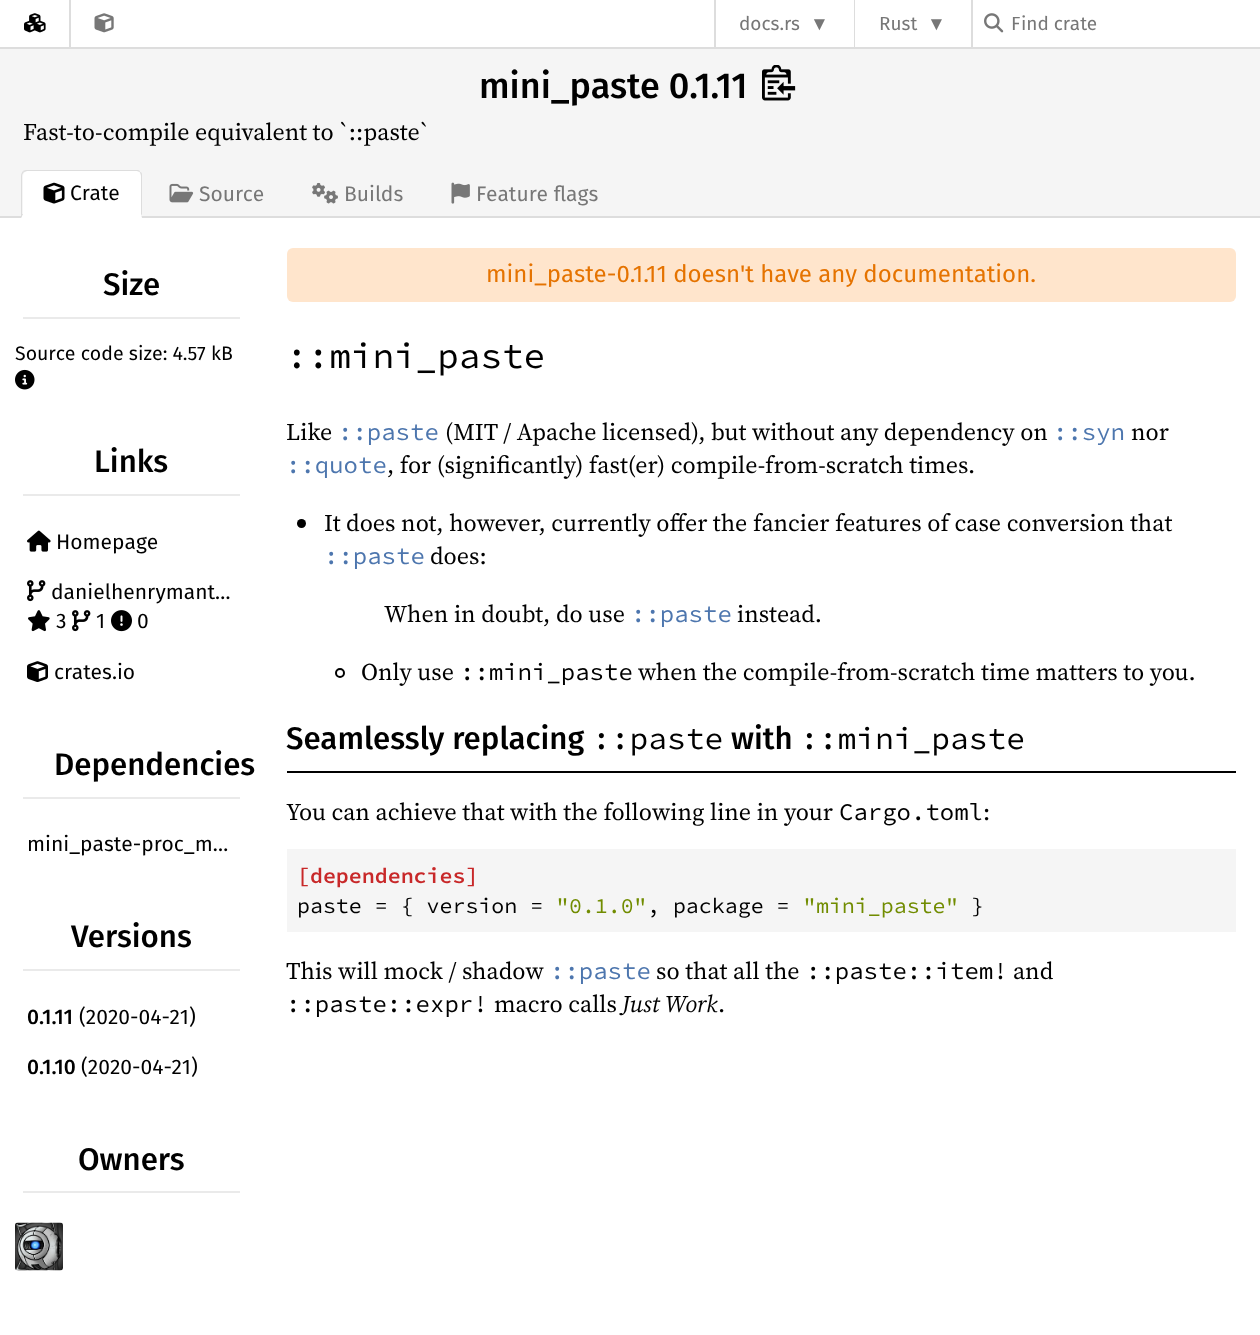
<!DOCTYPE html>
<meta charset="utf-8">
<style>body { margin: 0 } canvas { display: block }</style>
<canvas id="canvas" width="1260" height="1335"></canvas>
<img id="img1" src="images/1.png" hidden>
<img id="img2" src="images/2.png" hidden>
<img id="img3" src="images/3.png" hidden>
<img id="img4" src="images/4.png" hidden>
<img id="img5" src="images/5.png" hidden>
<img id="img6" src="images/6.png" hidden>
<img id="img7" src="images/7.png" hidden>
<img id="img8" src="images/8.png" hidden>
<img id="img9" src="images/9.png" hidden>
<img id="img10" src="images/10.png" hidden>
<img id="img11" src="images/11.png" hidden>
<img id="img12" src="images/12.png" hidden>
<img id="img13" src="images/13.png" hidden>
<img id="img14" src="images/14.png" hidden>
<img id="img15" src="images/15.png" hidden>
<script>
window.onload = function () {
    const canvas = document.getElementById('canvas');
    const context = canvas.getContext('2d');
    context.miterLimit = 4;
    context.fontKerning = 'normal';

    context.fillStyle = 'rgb(255, 255, 255)';
    context.fillRect(0, 0, 1260, 1335);
    context.fillStyle = 'rgb(221, 221, 221)';
    context.fillRect(0, 47, 1260, 2);
    context.drawImage(document.getElementById('img1'), 24, 13, 22, 20);
    context.fillRect(69, 0, 2, 47);
    context.drawImage(document.getElementById('img2'), 94, 13, 20, 20);
    context.fillRect(714, 0, 2, 47);
    context.fillRect(854, 0, 1, 47);
    context.fillRect(971, 0, 2, 47);
    context.drawImage(document.getElementById('img3'), 984, 13, 20, 20);
    context.fillStyle = 'rgb(245, 245, 245)';
    context.fillRect(0, 49, 1260, 167);
    context.fillStyle = 'rgb(221, 221, 221)';
    context.fillRect(0, 216, 1260, 2);
    context.drawImage(document.getElementById('img4'), 762, 65, 34, 36);
    context.fillStyle = 'rgb(255, 255, 255)';
    context.beginPath();
    context.roundRect(23, 171, 118, 44, [5, 5, 0, 0]);
    context.fill();
    context.fillStyle = 'rgb(221, 221, 221)';
    context.beginPath();
    context.moveTo(27, 170);
    context.bezierCurveTo(26, 170, 24, 170, 23, 171);
    context.lineTo(24, 172);
    context.lineTo(27, 171);
    context.lineTo(137, 171);
    context.lineTo(140, 172);
    context.bezierCurveTo(140, 170, 138, 170, 136, 170);
    context.closePath();
    context.fill();
    context.beginPath();
    context.moveTo(142, 216);
    context.lineTo(142, 176);
    context.bezierCurveTo(142, 174, 142, 172, 140, 172);
    context.bezierCurveTo(140, 173, 141, 174, 141, 176);
    context.lineTo(141, 214);
    context.closePath();
    context.fill();
    context.fillStyle = 'rgb(255, 255, 255)';
    context.beginPath();
    context.moveTo(142, 218);
    context.lineTo(21, 218);
    context.lineTo(23, 214);
    context.lineTo(141, 214);
    context.closePath();
    context.fill();
    context.fillStyle = 'rgb(221, 221, 221)';
    context.beginPath();
    context.moveTo(21, 218);
    context.lineTo(23, 214);
    context.lineTo(22, 214);
    context.lineTo(22, 176);
    context.bezierCurveTo(22, 174, 23, 173, 24, 172);
    context.lineTo(23, 171);
    context.bezierCurveTo(22, 172, 21, 174, 21, 176);
    context.closePath();
    context.fill();
    context.drawImage(document.getElementById('img5'), 43, 182, 22, 22);
    context.drawImage(document.getElementById('img6'), 169, 183, 25, 20);
    context.drawImage(document.getElementById('img7'), 312, 182, 26, 22);
    context.drawImage(document.getElementById('img8'), 451, 182, 19, 22);
    context.fillStyle = 'rgb(234, 234, 234)';
    context.fillRect(23, 317, 217, 2);
    context.drawImage(document.getElementById('img9'), 15, 369, 20, 21);
    context.fillRect(23, 494, 217, 2);
    context.drawImage(document.getElementById('img10'), 27, 530, 24, 22);
    context.drawImage(document.getElementById('img11'), 27, 580, 19, 22);
    context.drawImage(document.getElementById('img12'), 28, 610, 22, 22);
    context.drawImage(document.getElementById('img11'), 72, 610, 19, 22);
    context.drawImage(document.getElementById('img13'), 111, 610, 21, 22);
    context.drawImage(document.getElementById('img14'), 27, 661, 21, 21);
    context.fillRect(23, 797, 217, 2);
    context.fillRect(23, 969, 217, 2);
    context.fillRect(23, 1191, 217, 2);
    context.drawImage(document.getElementById('img15'), 15, 1222, 48, 49);
    context.fillStyle = 'rgb(255, 229, 204)';
    context.beginPath();
    context.roundRect(287, 248, 949, 54, 6);
    context.fill();
    context.fillStyle = 'rgb(0, 0, 0)';
    context.beginPath();
    context.arc(301.5, 523.5, 4.5, 0, 2 * Math.PI);
    context.fill();
    context.beginPath();
    context.arc(340, 673, 4, 0, 2 * Math.PI);
    context.strokeStyle = 'rgb(0, 0, 0)';
    context.lineWidth = 2;
    context.stroke();
    context.fillRect(287, 771, 949, 2);
    context.fillStyle = 'rgb(245, 245, 245)';
    context.fillRect(287, 849, 949, 83);
    context.font = '19px Fira Sans';
    context.fillStyle = 'rgb(119, 119, 119)';
    context.fillText('docs.rs', 739, 30);
    context.font = '19px Liberation Sans';
    context.fillText('▼', 810, 30);
    context.font = '19px Fira Sans';
    context.fillText('Rust', 879, 30);
    context.font = '19px Liberation Sans';
    context.fillText('▼', 927, 30);
    context.font = '19px Fira Sans';
    context.fillText('Find crate', 1011, 30);
    context.font = '500 36px Fira Sans';
    context.fillStyle = 'rgb(0, 0, 0)';
    context.fillText('mini_paste 0.1.11', 479, 98);
    context.font = '24px "Source Serif 4"';
    context.fillText('Fast-to-compile equivalent to `::paste`', 23, 140);
    context.font = '21px Fira Sans';
    context.fillText('Crate', 70, 200);
    context.fillStyle = 'rgb(119, 119, 119)';
    context.fillText('Source', 199, 201);
    context.fillText('Builds', 344, 201);
    context.fillText('Feature flags', 476, 201);
    context.font = '500 31.25px Fira Sans';
    context.fillStyle = 'rgb(0, 0, 0)';
    context.fillText('Size', 103, 295);
    context.font = '19.5px Fira Sans';
    context.fillText('Source code size: 4.57 kB', 15, 360);
    context.font = '500 31.25px Fira Sans';
    context.fillText('Links', 94, 472);
    context.font = '21px Fira Sans';
    context.fillText('Homepage', 56, 549);
    context.fillText('danielhenrymant…', 51, 599);
    context.fillText('3', 56, 628);
    context.fillText('1', 96, 628);
    context.fillText('0', 137, 628);
    context.fillText('crates.io', 54, 679);
    context.font = '500 31.25px Fira Sans';
    context.fillText('Dependencies', 54, 775);
    context.font = '21px Fira Sans';
    context.fillText('mini_paste-proc_m…', 27, 851);
    context.font = '500 31.25px Fira Sans';
    context.fillText('Versions', 71, 947);
    context.font = '500 21px Fira Sans';
    context.fillText('0.1.11', 27, 1024);
    context.font = '21px Fira Sans';
    context.fillText('(2020-04-21)', 79, 1024);
    context.font = '500 21px Fira Sans';
    context.fillText('0.1.10', 27, 1074);
    context.font = '21px Fira Sans';
    context.fillText('(2020-04-21)', 81, 1074);
    context.font = '500 31.25px Fira Sans';
    context.fillText('Owners', 78, 1170);
    context.font = '24px Fira Sans';
    context.fillStyle = 'rgb(229, 115, 0)';
    context.fillText('mini_paste-0.1.11 doesn\'t have any documentation.', 486, 282);
    context.font = '36px Source Code Pro';
    context.fillStyle = 'rgb(0, 0, 0)';
    context.fillText('::mini_paste', 286, 368);
    context.font = '24px "Source Serif 4"';
    context.fillText('Like', 286, 440);
    context.font = '24px Source Code Pro';
    context.fillStyle = 'rgb(77, 118, 174)';
    context.fillText('::paste', 338, 440);
    context.font = '24px "Source Serif 4"';
    context.fillStyle = 'rgb(0, 0, 0)';
    context.fillText('(MIT / Apache licensed), but without any dependency on', 445, 440);
    context.font = '24px Source Code Pro';
    context.fillStyle = 'rgb(77, 118, 174)';
    context.fillText('::syn', 1053, 440);
    context.font = '24px "Source Serif 4"';
    context.fillStyle = 'rgb(0, 0, 0)';
    context.fillText('nor', 1131, 440);
    context.font = '24px Source Code Pro';
    context.fillStyle = 'rgb(77, 118, 174)';
    context.fillText('::quote', 286, 473);
    context.font = '24px "Source Serif 4"';
    context.fillStyle = 'rgb(0, 0, 0)';
    context.fillText(', for (significantly) fast(er) compile-from-scratch times.', 387, 473);
    context.fillText('It does not, however, currently offer the fancier features of case conversion that', 324, 531);
    context.font = '24px Source Code Pro';
    context.fillStyle = 'rgb(77, 118, 174)';
    context.fillText('::paste', 324, 564);
    context.font = '24px "Source Serif 4"';
    context.fillStyle = 'rgb(0, 0, 0)';
    context.fillText('does:', 430, 564);
    context.fillText('When in doubt, do use', 384, 622);
    context.font = '24px Source Code Pro';
    context.fillStyle = 'rgb(77, 118, 174)';
    context.fillText('::paste', 631, 622);
    context.font = '24px "Source Serif 4"';
    context.fillStyle = 'rgb(0, 0, 0)';
    context.fillText('instead.', 737, 622);
    context.fillText('Only use', 361, 680);
    context.font = '24px Source Code Pro';
    context.fillText('::mini_paste', 460, 680);
    context.font = '24px "Source Serif 4"';
    context.fillText('when the compile-from-scratch time matters to you.', 638, 680);
    context.font = '500 31.25px Fira Sans';
    context.fillText('Seamlessly replacing', 286, 749);
    context.font = '31.25px Source Code Pro';
    context.fillText('::paste', 592, 749);
    context.font = '500 31.25px Fira Sans';
    context.fillText('with', 731, 749);
    context.font = '31.25px Source Code Pro';
    context.fillText('::mini_paste', 800, 749);
    context.font = '24px "Source Serif 4"';
    context.fillText('You can achieve that with the following line in your', 286, 820);
    context.font = '24px Source Code Pro';
    context.fillText('Cargo.toml', 839, 820);
    context.font = '24px "Source Serif 4"';
    context.fillText(':', 983, 820);
    context.font = '600 21.6px Source Code Pro';
    context.fillStyle = 'rgb(200, 40, 41)';
    context.fillText('[dependencies]', 297, 883);
    context.font = '21.6px Source Code Pro';
    context.fillStyle = 'rgb(0, 0, 0)';
    context.fillText('paste = { version =', 297, 913);
    context.fillStyle = 'rgb(113, 140, 0)';
    context.fillText('"0.1.0"', 556, 913);
    context.fillStyle = 'rgb(0, 0, 0)';
    context.fillText(', package =', 647, 913);
    context.fillStyle = 'rgb(113, 140, 0)';
    context.fillText('"mini_paste"', 803, 913);
    context.fillStyle = 'rgb(0, 0, 0)';
    context.fillText('}', 971, 913);
    context.font = '24px "Source Serif 4"';
    context.fillText('This will mock / shadow', 286, 979);
    context.font = '24px Source Code Pro';
    context.fillStyle = 'rgb(77, 118, 174)';
    context.fillText('::paste', 550, 979);
    context.font = '24px "Source Serif 4"';
    context.fillStyle = 'rgb(0, 0, 0)';
    context.fillText('so that all the', 656, 979);
    context.font = '24px Source Code Pro';
    context.fillText('::paste::item!', 806, 979);
    context.font = '24px "Source Serif 4"';
    context.fillText('and', 1013, 979);
    context.font = '24px Source Code Pro';
    context.fillText('::paste::expr!', 286, 1012);
    context.font = '24px "Source Serif 4"';
    context.fillText('macro calls', 494, 1012);
    context.font = 'italic 24px "Source Serif 4"';
    context.fillText('Just Work', 622, 1012);
    context.font = '24px "Source Serif 4"';
    context.fillText('.', 718, 1012);
};
</script>
